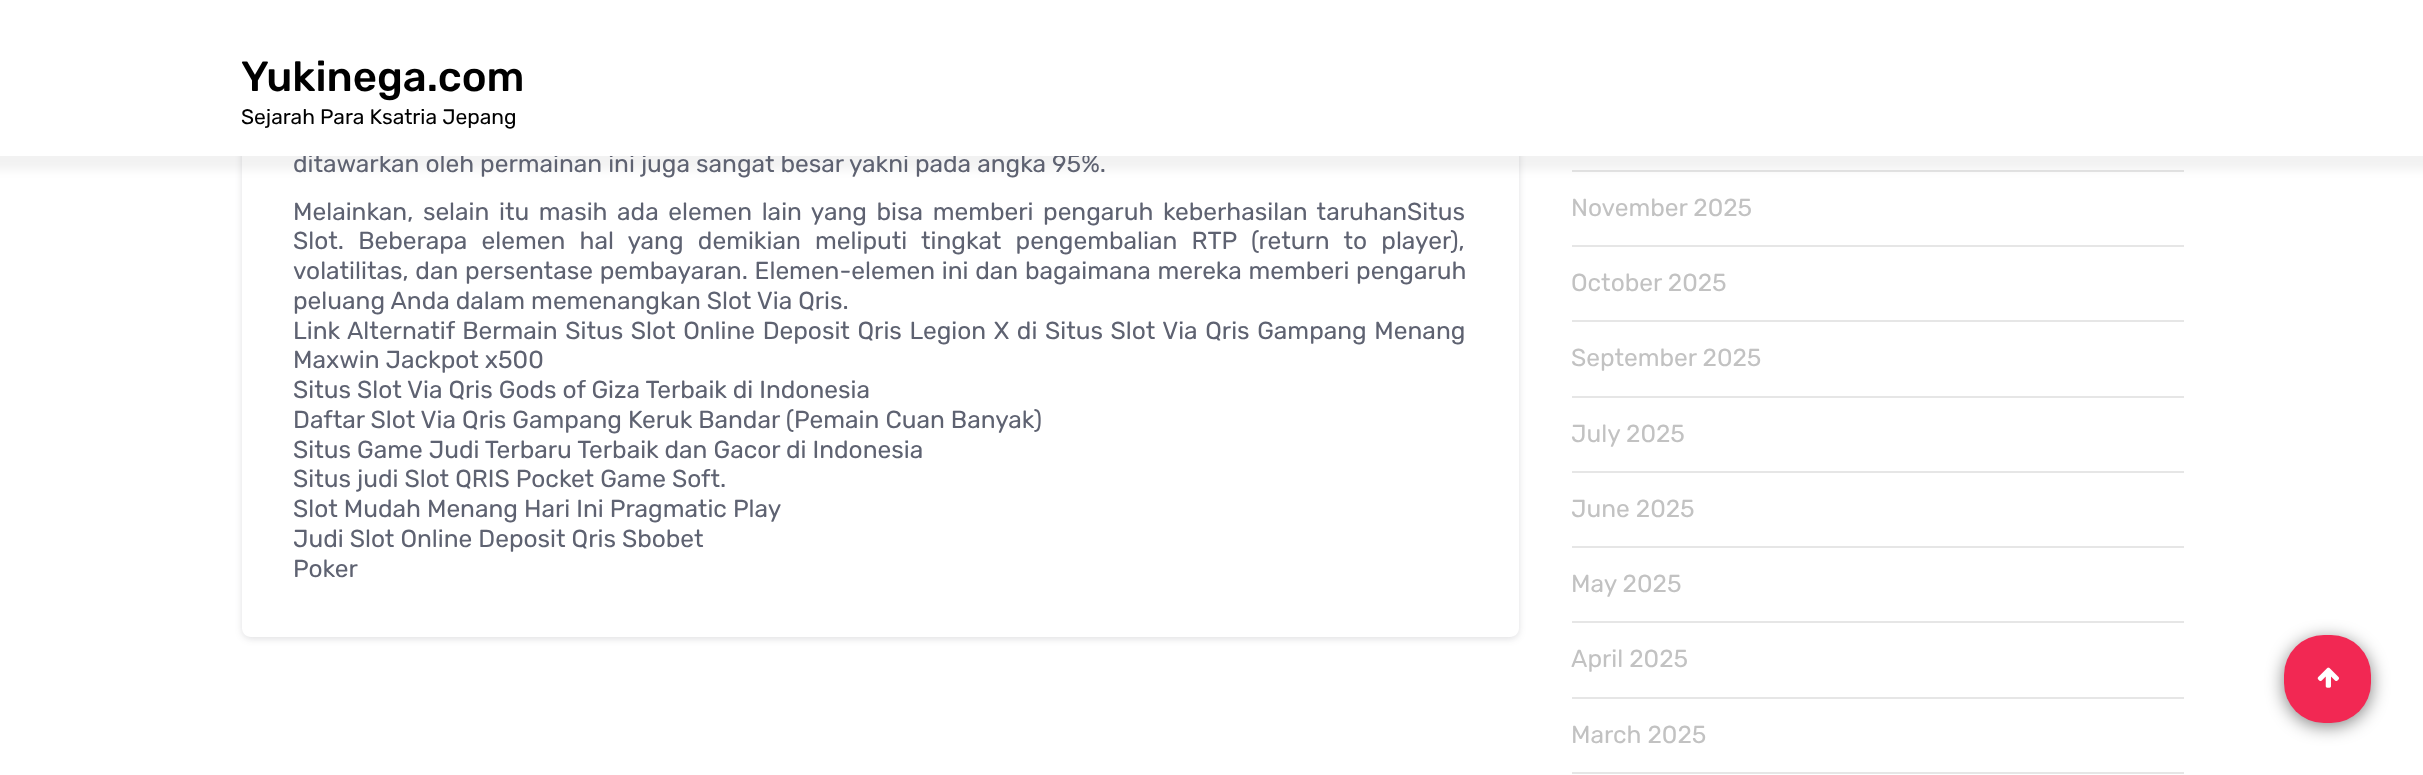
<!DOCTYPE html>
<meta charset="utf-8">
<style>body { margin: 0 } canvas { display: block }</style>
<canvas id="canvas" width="2423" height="775"></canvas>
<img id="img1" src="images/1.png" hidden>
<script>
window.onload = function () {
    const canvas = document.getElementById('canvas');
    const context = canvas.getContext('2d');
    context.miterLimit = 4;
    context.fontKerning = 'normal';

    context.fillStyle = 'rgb(255, 255, 255)';
    context.fillRect(0, 0, 2423, 775);
    context.fillStyle = 'rgb(230, 230, 230)';
    context.fillRect(1572, 170, 612, 2);
    context.fillStyle = 'rgba(0, 0, 0, 0.05)';
    context.filter = 'blur(5px)';
    context.beginPath();
    context.rect(-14, -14, 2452, 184);
    context.fill();
    context.filter = 'none';
    context.save();
    context.beginPath();
    context.moveTo(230, 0);
    context.lineTo(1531, 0);
    context.lineTo(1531, 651);
    context.lineTo(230, 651);
    context.closePath();
    context.moveTo(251, -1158);
    context.lineTo(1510, -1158);
    context.bezierCurveTo(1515, -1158, 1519, -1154, 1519, -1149);
    context.lineTo(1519, 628);
    context.bezierCurveTo(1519, 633, 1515, 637, 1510, 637);
    context.lineTo(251, 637);
    context.bezierCurveTo(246, 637, 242, 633, 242, 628);
    context.lineTo(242, -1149);
    context.bezierCurveTo(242, -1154, 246, -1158, 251, -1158);
    context.closePath();
    context.clip('evenodd');
    context.fillStyle = 'rgba(44, 49, 59, 0.15)';
    context.filter = 'blur(3.5px)';
    context.beginPath();
    context.roundRect(242, -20, 1277, 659, 9);
    context.fill();
    context.filter = 'none';
    context.restore();
    context.fillStyle = 'rgb(230, 230, 230)';
    context.fillRect(1572, 245, 612, 2);
    context.fillRect(1572, 320, 612, 2);
    context.fillRect(1572, 396, 612, 2);
    context.fillRect(1572, 471, 612, 2);
    context.fillRect(1572, 546, 612, 2);
    context.fillRect(1572, 621, 612, 2);
    context.fillRect(1572, 697, 612, 2);
    context.fillRect(1572, 772, 612, 2);
    context.fillStyle = 'rgba(0, 0, 0, 0.5)';
    context.filter = 'blur(9px)';
    context.beginPath();
    context.roundRect(2284, 639, 87, 87, 40);
    context.fill();
    context.filter = 'none';
    context.fillStyle = 'rgb(242, 40, 83)';
    context.beginPath();
    context.roundRect(2284, 635, 87, 88, 40);
    context.fill();
    context.drawImage(document.getElementById('img1'), 2317, 667, 22, 21);
    context.font = '24.5px Rubik';
    context.fillStyle = 'rgb(94, 98, 113)';
    context.fillText('ditawarkan oleh permainan ini juga sangat besar yakni pada angka 95%.', 293, 172);
    context.fillStyle = 'rgb(255, 255, 255)';
    context.fillRect(0, 0, 2423, 156);
    context.font = '21px Rubik';
    context.fillStyle = 'rgb(0, 0, 0)';
    context.fillText('Sejarah Para Ksatria Jepang', 241, 124);
    context.font = '500 42px Rubik';
    context.fillText('Yukinega.com', 241, 91);
    context.wordSpacing = '3.6px';
    context.font = '24.5px Rubik';
    context.fillStyle = 'rgb(94, 98, 113)';
    context.fillText('Melainkan, selain itu masih ada elemen lain yang bisa memberi pengaruh keberhasilan taruhanSitus', 293, 220);
    context.wordSpacing = '8.25px';
    context.fillText('Slot. Beberapa elemen hal yang demikian meliputi tingkat pengembalian RTP (return to player),', 293, 249);
    context.wordSpacing = '0.75px';
    context.fillText('volatilitas, dan persentase pembayaran. Elemen-elemen ini dan bagaimana mereka memberi pengaruh', 293, 279);
    context.wordSpacing = '0px';
    context.fillText('peluang Anda dalam memenangkan Slot Via Qris.', 293, 309);
    context.wordSpacing = '1.6px';
    context.fillText('Link Alternatif Bermain Situs Slot Online Deposit Qris Legion X di Situs Slot Via Qris Gampang Menang', 293, 339);
    context.wordSpacing = '0px';
    context.fillText('Maxwin Jackpot x500', 293, 368);
    context.fillText('Situs Slot Via Qris Gods of Giza Terbaik di Indonesia', 293, 398);
    context.fillText('Daftar Slot Via Qris Gampang Keruk Bandar (Pemain Cuan Banyak)', 293, 428);
    context.fillText('Situs Game Judi Terbaru Terbaik dan Gacor di Indonesia', 293, 458);
    context.fillText('Situs judi Slot QRIS Pocket Game Soft.', 293, 487);
    context.fillText('Slot Mudah Menang Hari Ini Pragmatic Play', 293, 517);
    context.fillText('Judi Slot Online Deposit Qris Sbobet', 293, 547);
    context.fillText('Poker', 293, 577);
    context.fillStyle = 'rgb(194, 194, 194)';
    context.fillText('November 2025', 1571, 216);
    context.fillText('October 2025', 1571, 291);
    context.fillText('September 2025', 1571, 366);
    context.fillText('July 2025', 1571, 442);
    context.fillText('June 2025', 1571, 517);
    context.fillText('May 2025', 1571, 592);
    context.fillText('April 2025', 1571, 667);
    context.fillText('March 2025', 1571, 743);
};
</script>
